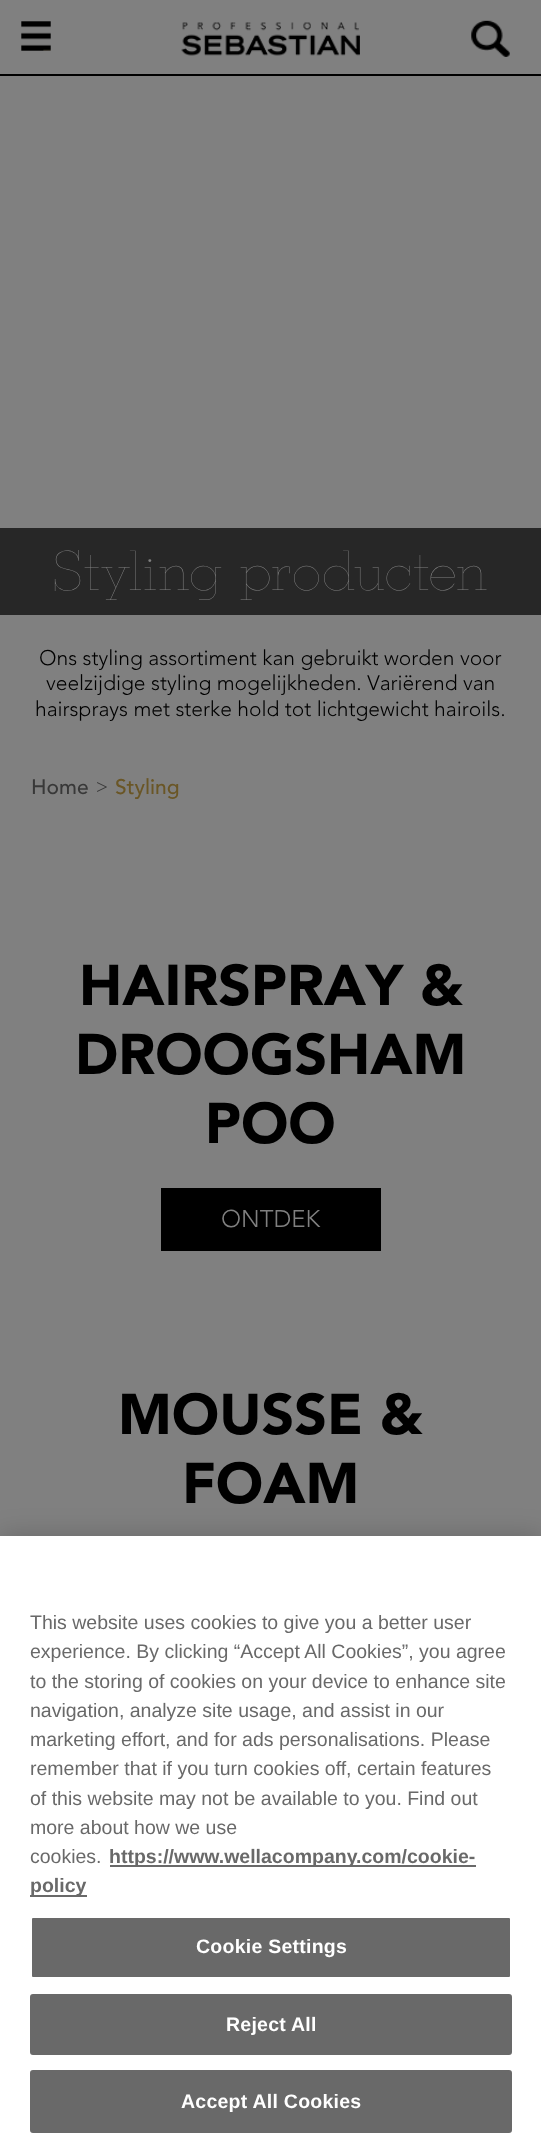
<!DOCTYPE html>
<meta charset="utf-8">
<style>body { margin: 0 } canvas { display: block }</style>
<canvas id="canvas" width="541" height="2148"></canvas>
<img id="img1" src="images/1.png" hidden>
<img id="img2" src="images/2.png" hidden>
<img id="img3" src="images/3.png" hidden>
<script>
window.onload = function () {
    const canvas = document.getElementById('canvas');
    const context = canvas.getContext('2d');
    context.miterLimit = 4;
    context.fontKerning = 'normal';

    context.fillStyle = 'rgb(128, 128, 128)';
    context.fillRect(0, 0, 541, 2148);
    context.fillStyle = 'rgb(0, 0, 0)';
    context.fillRect(0, 74, 541, 2);
    context.drawImage(document.getElementById('img1'), 21, 21, 30, 30);
    context.drawImage(document.getElementById('img2'), 471, 20, 39, 37);
    context.drawImage(document.getElementById('img3'), 181, 22, 179, 34);
    context.fillStyle = 'rgb(39, 39, 39)';
    context.fillRect(0, 528, 541, 87);
    context.fillStyle = 'rgb(0, 0, 0)';
    context.fillRect(161, 1188, 220, 63);
    context.fillStyle = 'rgba(0, 0, 0, 0.2)';
    context.filter = 'blur(13.5px)';
    context.beginPath();
    context.rect(0, 1536, 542, 612);
    context.fill();
    context.filter = 'none';
    context.fillStyle = 'rgb(255, 255, 255)';
    context.fillRect(0, 1536, 541, 612);
    context.fillStyle = 'rgb(105, 105, 105)';
    context.fillRect(110, 1865, 366, 2);
    context.fillRect(30, 1895, 57, 2);
    context.beginPath();
    context.roundRect(31, 1917, 480, 61, 2);
    context.fill();
    context.strokeStyle = 'rgb(255, 255, 255)';
    context.lineWidth = 2;
    context.stroke();
    context.beginPath();
    context.roundRect(31, 1995, 480, 59, 2);
    context.fill();
    context.strokeStyle = 'rgb(105, 105, 105)';
    context.stroke();
    context.beginPath();
    context.roundRect(31, 2071, 480, 61, 2);
    context.fill();
    context.stroke();
    context.font = '52.5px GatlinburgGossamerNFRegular';
    context.fillStyle = 'rgb(128, 128, 128)';
    context.fillText('Styling producten', 53, 590);
    context.font = '300 21px "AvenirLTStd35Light"';
    context.fillStyle = 'rgb(0, 0, 0)';
    context.fillText('Ons styling assortiment kan gebruikt worden voor', 39, 665);
    context.fillText('veelzijdige styling mogelijkheden. Variërend van', 46, 690);
    context.fillText('hairsprays met sterke hold tot lichtgewicht hairoils.', 35, 716);
    context.font = '500 21px "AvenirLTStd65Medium"';
    context.fillStyle = 'rgb(56, 56, 56)';
    context.fillText('Home', 31, 794);
    context.font = '21px Liberation Serif';
    context.fillText('>', 96, 794);
    context.font = '500 21px "AvenirLTStd65Medium"';
    context.fillStyle = 'rgb(106, 86, 38)';
    context.fillText('Styling', 115, 794);
    context.font = '900 57px Avenir';
    context.fillStyle = 'rgb(0, 0, 0)';
    context.fillText('HAIRSPRAY &', 79, 1005);
    context.fillText('DROOGSHAM', 75, 1074);
    context.fillText('POO', 205, 1143);
    context.font = '300 24px "AvenirLTStd35Light"';
    context.fillStyle = 'rgb(128, 128, 128)';
    context.fillText('ONTDEK', 221, 1227);
    context.font = '900 57px Avenir';
    context.fillStyle = 'rgb(0, 0, 0)';
    context.fillText('MOUSSE &', 118, 1434);
    context.fillText('FOAM', 182, 1503);
    context.font = '19.5px Liberation Sans';
    context.fillStyle = 'rgb(105, 105, 105)';
    context.fillText('This website uses cookies to give you a better user', 30, 1629);
    context.fillText('experience. By clicking “Accept All Cookies”, you agree', 30, 1658);
    context.fillText('to the storing of cookies on your device to enhance site', 30, 1688);
    context.fillText('navigation, analyze site usage, and assist in our', 30, 1717);
    context.fillText('marketing effort, and for ads personalisations. Please', 30, 1746);
    context.fillText('remember that if you turn cookies off, certain features', 30, 1775);
    context.fillText('of this website may not be available to you. Find out', 30, 1805);
    context.fillText('more about how we use', 30, 1834);
    context.fillText('cookies.', 30, 1863);
    context.font = 'bold 19.5px Liberation Sans';
    context.fillText('https://www.wellacompany.com/cookie-', 109, 1863);
    context.fillText('policy', 30, 1892);
    context.letterSpacing = '0.25px';
    context.fillStyle = 'rgb(255, 255, 255)';
    context.fillText('Cookie Settings', 196, 1953);
    context.fillText('Reject All', 226, 2031);
    context.fillText('Accept All Cookies', 181, 2108);
};
</script>
